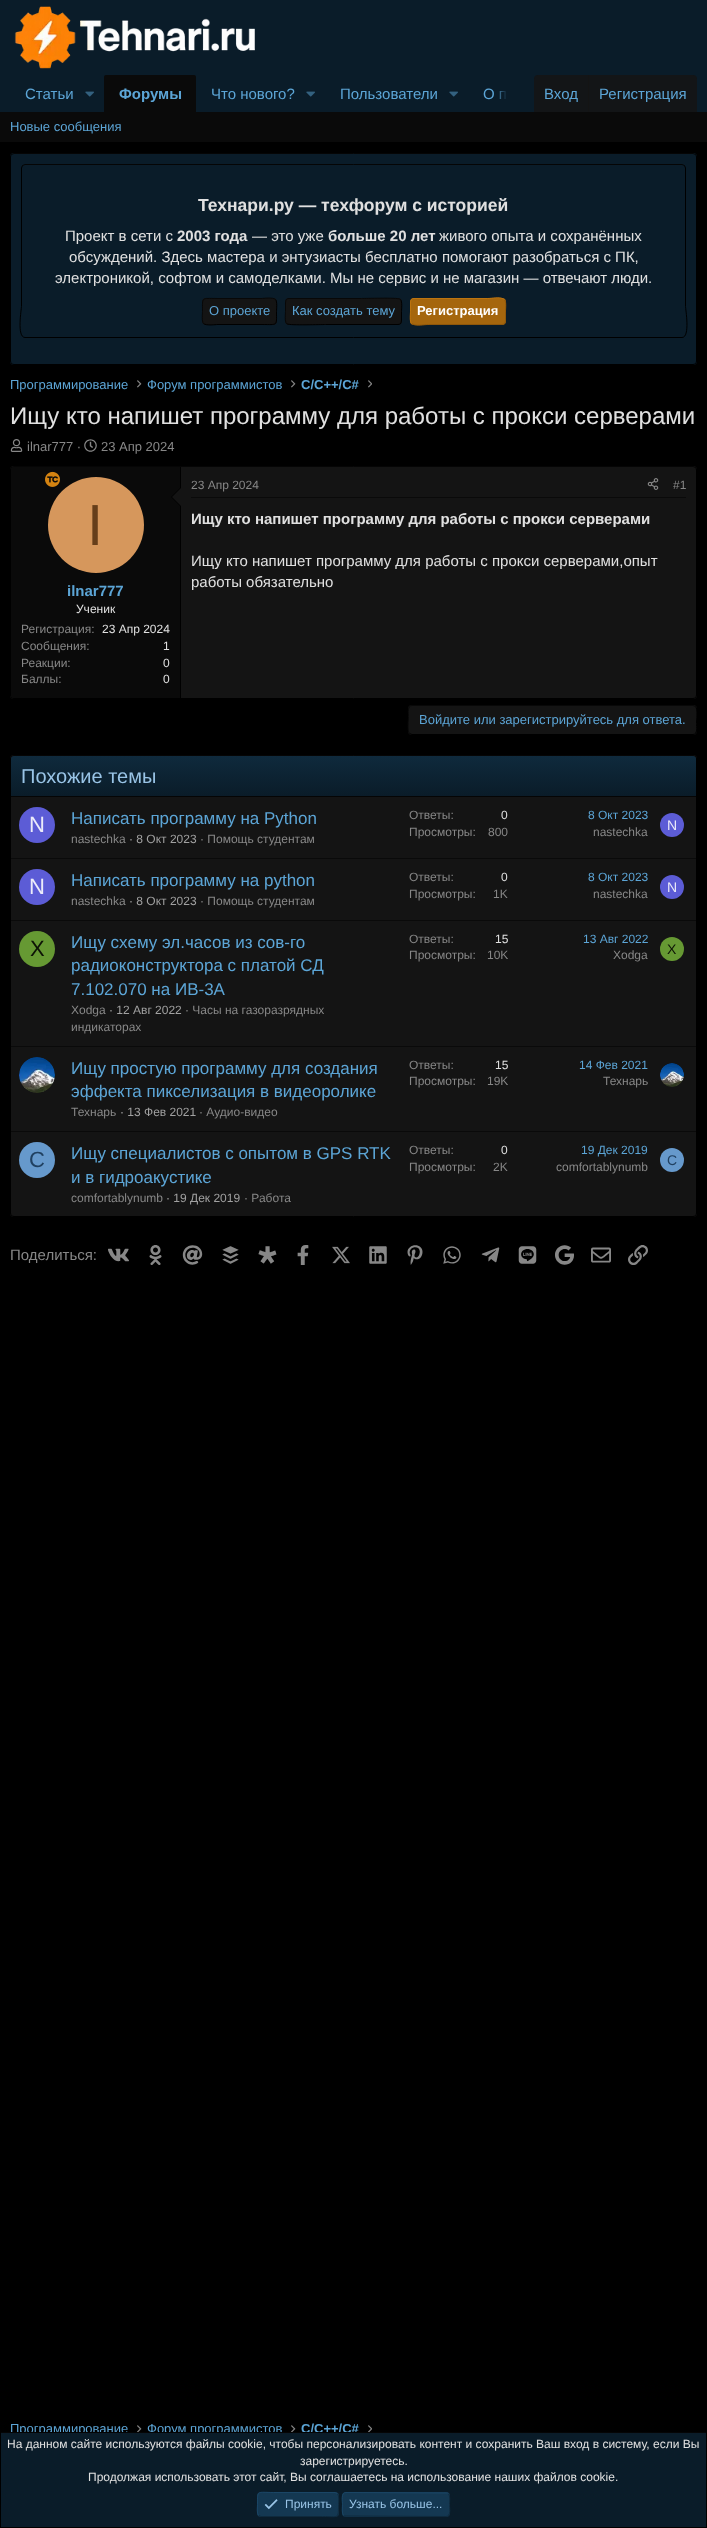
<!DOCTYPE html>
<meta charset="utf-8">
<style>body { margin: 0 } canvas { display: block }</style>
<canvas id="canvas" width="707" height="2528"></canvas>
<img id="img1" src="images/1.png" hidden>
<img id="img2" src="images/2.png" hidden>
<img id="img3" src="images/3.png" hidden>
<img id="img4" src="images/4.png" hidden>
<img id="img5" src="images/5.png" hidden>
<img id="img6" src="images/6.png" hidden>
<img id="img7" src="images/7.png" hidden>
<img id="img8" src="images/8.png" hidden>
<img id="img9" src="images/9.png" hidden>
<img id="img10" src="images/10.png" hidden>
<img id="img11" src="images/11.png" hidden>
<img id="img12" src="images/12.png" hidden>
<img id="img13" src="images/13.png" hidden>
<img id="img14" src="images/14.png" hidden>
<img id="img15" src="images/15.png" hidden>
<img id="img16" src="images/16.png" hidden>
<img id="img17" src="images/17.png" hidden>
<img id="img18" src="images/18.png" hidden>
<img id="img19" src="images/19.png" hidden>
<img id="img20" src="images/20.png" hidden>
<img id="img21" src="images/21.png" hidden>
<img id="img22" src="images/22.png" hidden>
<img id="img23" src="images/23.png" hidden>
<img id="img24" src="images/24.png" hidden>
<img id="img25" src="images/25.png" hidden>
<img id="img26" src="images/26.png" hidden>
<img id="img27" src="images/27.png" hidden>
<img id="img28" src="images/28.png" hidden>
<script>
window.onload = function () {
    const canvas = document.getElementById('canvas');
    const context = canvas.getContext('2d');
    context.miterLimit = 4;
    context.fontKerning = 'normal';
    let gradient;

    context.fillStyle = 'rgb(0, 0, 0)';
    context.fillRect(0, 0, 707, 2528);
    context.fillStyle = 'rgb(10, 28, 41)';
    context.fillRect(0, 0, 707, 112);
    context.drawImage(document.getElementById('img1'), 14, 6, 241, 63);
    context.drawImage(document.getElementById('img2'), 85, 91, 9, 6);
    context.fillStyle = 'rgb(10, 10, 10)';
    context.beginPath();
    context.roundRect(104, 75, 92, 37, [2, 2, 0, 0]);
    context.fill();
    context.drawImage(document.getElementById('img2'), 306, 91, 9, 6);
    context.drawImage(document.getElementById('img2'), 449, 91, 9, 6);
    context.fillStyle = 'rgb(19, 21, 23)';
    context.beginPath();
    context.roundRect(534, 75, 163, 37, [4, 4, 0, 0]);
    context.fill();
    context.fillStyle = 'rgb(20, 20, 20)';
    context.fillRect(588, 75, 1, 37);
    context.fillStyle = 'rgb(10, 10, 10)';
    context.fillRect(0, 112, 707, 30);
    context.fillStyle = 'rgb(10, 28, 41)';
    context.beginPath();
    context.roundRect(10, 153, 687, 212, 4);
    context.fill();
    context.beginPath();
    context.moveTo(11.5, 154.5);
    context.lineTo(14, 153.5);
    context.lineTo(693, 153.5);
    context.lineTo(695.5, 154.5);
    context.strokeStyle = 'rgb(5, 5, 5)';
    context.stroke();
    context.beginPath();
    context.moveTo(695.5, 154.5);
    context.bezierCurveTo(696, 155, 696.5, 156, 696.5, 157);
    context.lineTo(696.5, 361);
    context.bezierCurveTo(696.5, 362, 696, 363, 695.5, 363.5);
    context.bezierCurveTo(695, 364, 694, 364.5, 693, 364.5);
    context.lineTo(14, 364.5);
    context.bezierCurveTo(13, 364.5, 12, 364, 11.5, 363.5);
    context.bezierCurveTo(11, 363, 10.5, 362, 10.5, 361);
    context.lineTo(10.5, 157);
    context.bezierCurveTo(10.5, 156, 11, 155, 11.5, 154.5);
    context.strokeStyle = 'rgb(0, 0, 0)';
    context.stroke();
    context.beginPath();
    context.moveTo(22.5, 165.5);
    context.lineTo(25, 164.5);
    context.lineTo(682, 164.5);
    context.lineTo(684.5, 165.5);
    context.strokeStyle = 'rgb(5, 5, 5)';
    context.stroke();
    context.beginPath();
    context.moveTo(684.5, 165.5);
    context.lineTo(685.5, 168);
    context.lineTo(685.5, 306.5);
    context.bezierCurveTo(685.5, 308.5, 690.5, 337.5, 682, 337.5);
    context.lineTo(25, 337.5);
    context.bezierCurveTo(16.5, 337.5, 21.5, 308.5, 21.5, 306.5);
    context.lineTo(21.5, 168);
    context.lineTo(22.5, 165.5);
    context.strokeStyle = 'rgb(0, 0, 0)';
    context.stroke();
    context.fillStyle = 'rgb(20, 20, 20)';
    context.beginPath();
    context.roundRect(202, 298, 75, 27, 4);
    context.fill();
    context.beginPath();
    context.moveTo(275.5, 299.5);
    context.bezierCurveTo(277.5, 301.5, 276.5, 309, 276.5, 311.5);
    context.bezierCurveTo(276.5, 326.5, 278, 324.5, 262, 324.5);
    context.lineTo(217, 324.5);
    context.bezierCurveTo(216.5, 324.5, 206, 326, 203.5, 323.5);
    context.stroke();
    context.beginPath();
    context.moveTo(203.5, 323.5);
    context.bezierCurveTo(201.5, 321.5, 202.5, 314, 202.5, 311.5);
    context.bezierCurveTo(202.5, 296.5, 201, 298.5, 217, 298.5);
    context.lineTo(262, 298.5);
    context.bezierCurveTo(262.5, 298.5, 273, 297, 275.5, 299.5);
    context.strokeStyle = 'rgb(8, 8, 8)';
    context.stroke();
    context.beginPath();
    context.roundRect(285, 298, 117, 27, 4);
    context.fill();
    context.beginPath();
    context.moveTo(400.5, 299.5);
    context.bezierCurveTo(402.5, 301.5, 401.5, 309, 401.5, 311.5);
    context.lineTo(401.5, 318);
    context.bezierCurveTo(401.5, 320.5, 402, 324.5, 398, 324.5);
    context.lineTo(325.5, 324.5);
    context.bezierCurveTo(321.5, 324.5, 290, 325.5, 287.5, 324);
    context.lineTo(286.5, 323.5);
    context.strokeStyle = 'rgb(0, 0, 0)';
    context.stroke();
    context.beginPath();
    context.moveTo(286.5, 323.5);
    context.bezierCurveTo(284.5, 321.5, 285.5, 314, 285.5, 311.5);
    context.lineTo(285.5, 305);
    context.bezierCurveTo(285.5, 302.5, 285, 298.5, 289, 298.5);
    context.lineTo(361.5, 298.5);
    context.bezierCurveTo(365.5, 298.5, 397, 297.5, 399.5, 299);
    context.lineTo(400.5, 299.5);
    context.strokeStyle = 'rgb(8, 8, 8)';
    context.stroke();
    context.fillStyle = 'rgb(165, 102, 13)';
    context.beginPath();
    context.roundRect(410, 298, 96, 27, 4);
    context.fill();
    context.beginPath();
    context.moveTo(504.5, 299.5);
    context.bezierCurveTo(506.5, 301.5, 505.5, 309, 505.5, 311.5);
    context.lineTo(505.5, 318);
    context.bezierCurveTo(505.5, 320.5, 506, 324.5, 502, 324.5);
    context.lineTo(428.5, 324.5);
    context.bezierCurveTo(423, 324.5, 417, 326.5, 412.5, 324);
    context.lineTo(411.5, 323.5);
    context.strokeStyle = 'rgb(142, 87, 11)';
    context.stroke();
    context.beginPath();
    context.moveTo(411.5, 323.5);
    context.bezierCurveTo(409.5, 321.5, 410.5, 314, 410.5, 311.5);
    context.lineTo(410.5, 305);
    context.bezierCurveTo(410.5, 302.5, 410, 298.5, 414, 298.5);
    context.lineTo(487.5, 298.5);
    context.bezierCurveTo(493, 298.5, 499, 296.5, 503.5, 299);
    context.lineTo(504.5, 299.5);
    context.strokeStyle = 'rgb(189, 116, 15)';
    context.stroke();
    context.drawImage(document.getElementById('img3'), 137, 380, 5, 8);
    context.drawImage(document.getElementById('img3'), 291, 380, 5, 8);
    context.drawImage(document.getElementById('img4'), 368, 380, 4, 8);
    context.drawImage(document.getElementById('img5'), 10, 439, 13, 13);
    context.drawImage(document.getElementById('img6'), 84, 439, 13, 13);
    context.fillStyle = 'rgb(20, 20, 20)';
    context.beginPath();
    context.roundRect(10, 466, 687, 233, 4);
    context.fill();
    context.beginPath();
    context.moveTo(11.5, 467.5);
    context.lineTo(14, 466.5);
    context.lineTo(693, 466.5);
    context.lineTo(695.5, 467.5);
    context.strokeStyle = 'rgb(5, 5, 5)';
    context.stroke();
    context.beginPath();
    context.moveTo(695.5, 467.5);
    context.bezierCurveTo(696, 468, 696.5, 469, 696.5, 470);
    context.lineTo(696.5, 695);
    context.bezierCurveTo(696.5, 696, 696, 697, 695.5, 697.5);
    context.bezierCurveTo(695, 698, 694, 698.5, 693, 698.5);
    context.lineTo(14, 698.5);
    context.bezierCurveTo(13, 698.5, 12, 698, 11.5, 697.5);
    context.bezierCurveTo(11, 697, 10.5, 696, 10.5, 695);
    context.lineTo(10.5, 470);
    context.bezierCurveTo(10.5, 469, 11, 468, 11.5, 467.5);
    context.strokeStyle = 'rgb(0, 0, 0)';
    context.stroke();
    context.fillStyle = 'rgb(10, 10, 10)';
    context.beginPath();
    context.roundRect(11, 467, 170, 231, [3, 0, 0, 3]);
    context.fill();
    context.fillStyle = 'rgb(0, 0, 0)';
    context.fillRect(180, 467, 1, 231);
    context.beginPath();
    context.moveTo(181, 487);
    context.lineTo(181, 507);
    context.lineTo(171, 497);
    context.closePath();
    context.fill();
    context.fillStyle = 'rgb(20, 20, 20)';
    context.beginPath();
    context.moveTo(181, 488);
    context.lineTo(181, 506);
    context.lineTo(172, 497);
    context.closePath();
    context.fill();
    context.fillStyle = 'rgb(214, 151, 92)';
    context.beginPath();
    context.arc(96, 525, 48, 0, 2 * Math.PI);
    context.fill();
    context.drawImage(document.getElementById('img7'), 45, 471, 15, 16);
    context.fillStyle = 'rgb(10, 10, 10)';
    context.fillRect(191, 497, 495, 1);
    context.drawImage(document.getElementById('img8'), 647, 478, 12, 12);
    context.fillStyle = 'rgb(20, 20, 20)';
    context.beginPath();
    context.roundRect(408, 705, 289, 30, 4);
    context.fill();
    context.beginPath();
    context.moveTo(695.5, 706.5);
    context.bezierCurveTo(698, 709, 696.5, 720.5, 696.5, 723.5);
    context.bezierCurveTo(696.5, 726.5, 698, 734.5, 693, 734.5);
    context.lineTo(412, 734.5);
    context.lineTo(409.5, 733.5);
    context.stroke();
    context.beginPath();
    context.moveTo(409.5, 733.5);
    context.bezierCurveTo(407, 731, 408.5, 719.5, 408.5, 716.5);
    context.bezierCurveTo(408.5, 713.5, 407, 705.5, 412, 705.5);
    context.lineTo(693, 705.5);
    context.lineTo(695.5, 706.5);
    context.strokeStyle = 'rgb(8, 8, 8)';
    context.stroke();
    context.beginPath();
    context.roundRect(10, 755, 687, 462, 4);
    context.fill();
    context.beginPath();
    context.moveTo(11.5, 756.5);
    context.lineTo(14, 755.5);
    context.lineTo(693, 755.5);
    context.lineTo(695.5, 756.5);
    context.strokeStyle = 'rgb(5, 5, 5)';
    context.stroke();
    context.beginPath();
    context.moveTo(695.5, 756.5);
    context.bezierCurveTo(696, 757, 696.5, 758, 696.5, 759);
    context.lineTo(696.5, 1213);
    context.bezierCurveTo(696.5, 1214, 696, 1215, 695.5, 1215.5);
    context.bezierCurveTo(695, 1216, 694, 1216.5, 693, 1216.5);
    context.lineTo(14, 1216.5);
    context.bezierCurveTo(13, 1216.5, 12, 1216, 11.5, 1215.5);
    context.bezierCurveTo(11, 1215, 10.5, 1214, 10.5, 1213);
    context.lineTo(10.5, 759);
    context.bezierCurveTo(10.5, 758, 11, 757, 11.5, 756.5);
    context.strokeStyle = 'rgb(0, 0, 0)';
    context.stroke();
    gradient = context.createLinearGradient(354, 796, 354, 756);
    gradient.addColorStop(0, 'rgb(10, 28, 41)');
    gradient.addColorStop(1, 'rgb(15, 42, 61)');
    context.fillStyle = gradient;
    context.beginPath();
    context.roundRect(11, 756, 685, 40, [3, 3, 0, 0]);
    context.fill();
    context.fillStyle = 'rgb(5, 5, 5)';
    context.fillRect(11, 796, 685, 1);
    context.fillStyle = 'rgb(92, 92, 214)';
    context.beginPath();
    context.arc(37, 825, 18, 0, 2 * Math.PI);
    context.fill();
    context.beginPath();
    context.arc(672, 825, 12, 0, 2 * Math.PI);
    context.fill();
    context.fillStyle = 'rgb(10, 10, 10)';
    context.fillRect(11, 858, 685, 1);
    context.fillStyle = 'rgb(92, 92, 214)';
    context.beginPath();
    context.arc(37, 887, 18, 0, 2 * Math.PI);
    context.fill();
    context.beginPath();
    context.arc(672, 887, 12, 0, 2 * Math.PI);
    context.fill();
    context.fillStyle = 'rgb(10, 10, 10)';
    context.fillRect(11, 920, 685, 1);
    context.fillStyle = 'rgb(102, 153, 51)';
    context.beginPath();
    context.arc(37, 949, 18, 0, 2 * Math.PI);
    context.fill();
    context.beginPath();
    context.arc(672, 949, 12, 0, 2 * Math.PI);
    context.fill();
    context.fillStyle = 'rgb(10, 10, 10)';
    context.fillRect(11, 1046, 685, 1);
    context.drawImage(document.getElementById('img9'), 19, 1057, 36, 36);
    context.drawImage(document.getElementById('img10'), 660, 1063, 24, 24);
    context.fillRect(11, 1131, 685, 1);
    context.fillStyle = 'rgb(102, 153, 204)';
    context.beginPath();
    context.arc(37, 1160, 18, 0, 2 * Math.PI);
    context.fill();
    context.beginPath();
    context.arc(672, 1160, 12, 0, 2 * Math.PI);
    context.fill();
    context.drawImage(document.getElementById('img11'), 108, 1248, 21, 14);
    context.drawImage(document.getElementById('img12'), 149, 1245, 13, 20);
    context.drawImage(document.getElementById('img13'), 182, 1245, 21, 20);
    context.drawImage(document.getElementById('img14'), 222, 1246, 17, 18);
    context.drawImage(document.getElementById('img15'), 258, 1246, 19, 18);
    context.drawImage(document.getElementById('img16'), 297, 1245, 12, 20);
    context.drawImage(document.getElementById('img17'), 332, 1246, 18, 18);
    context.drawImage(document.getElementById('img18'), 369, 1246, 18, 18);
    context.drawImage(document.getElementById('img19'), 407, 1245, 16, 20);
    context.drawImage(document.getElementById('img20'), 443, 1246, 18, 18);
    context.drawImage(document.getElementById('img21'), 481, 1247, 19, 16);
    context.drawImage(document.getElementById('img22'), 518, 1246, 19, 18);
    context.drawImage(document.getElementById('img23'), 555, 1245, 19, 20);
    context.drawImage(document.getElementById('img24'), 591, 1247, 20, 16);
    context.drawImage(document.getElementById('img25'), 628, 1245, 20, 20);
    context.drawImage(document.getElementById('img26'), 137, 2425, 5, 7);
    context.drawImage(document.getElementById('img26'), 291, 2425, 5, 7);
    context.drawImage(document.getElementById('img27'), 368, 2425, 4, 7);
    context.font = '15px Liberation Sans';
    context.fillStyle = 'rgb(92, 165, 214)';
    context.fillText('Статьи', 25, 99);
    context.font = 'bold 15px Liberation Sans';
    context.fillText('Форумы', 119, 99);
    context.font = '15px Liberation Sans';
    context.fillText('Что нового?', 211, 99);
    context.fillText('Пользователи', 340, 99);
    context.fillText('О п', 483, 99);
    gradient = context.createLinearGradient(494, 94, 534, 94);
    gradient.addColorStop(0, 'rgba(10, 28, 41, 0)');
    gradient.addColorStop(0.33, 'rgb(10, 28, 41)');
    context.fillStyle = gradient;
    context.fillRect(499, 91, 7, 8);
    context.fillStyle = 'rgb(92, 165, 214)';
    context.fillText('Вход', 544, 99);
    context.fillText('Регистрация', 599, 99);
    context.font = '13px Liberation Sans';
    context.fillText('Новые сообщения', 10, 131);
    context.font = 'bold 17.5px Liberation Sans';
    context.fillStyle = 'rgb(224, 224, 224)';
    context.fillText('Технари.ру — техфорум с историей', 198, 211);
    context.font = '15px Liberation Sans';
    context.fillText('Проект в сети с', 65, 241);
    context.font = 'bold 15px Liberation Sans';
    context.fillText('2003 года', 177, 241);
    context.font = '15px Liberation Sans';
    context.fillText('— это уже', 252, 241);
    context.font = 'bold 15px Liberation Sans';
    context.fillText('больше 20 лет', 328, 241);
    context.font = '15px Liberation Sans';
    context.fillText('живого опыта и сохранённых', 439, 241);
    context.fillText('обсуждений. Здесь мастера и энтузиасты бесплатно помогают разобраться с ПК,', 69, 262);
    context.fillText('электроникой, софтом и самоделками. Мы не сервис и не магазин — отвечают люди.', 55, 283);
    context.font = '13px Liberation Sans';
    context.fillStyle = 'rgb(92, 165, 214)';
    context.fillText('О проекте', 209, 315);
    context.fillText('Как создать тему', 292, 315);
    context.font = 'bold 13px Liberation Sans';
    context.fillStyle = 'rgb(255, 255, 255)';
    context.fillText('Регистрация', 417, 315);
    context.font = '13px Liberation Sans';
    context.fillStyle = 'rgb(92, 165, 214)';
    context.fillText('Программирование', 10, 389);
    context.fillText('Форум программистов', 147, 389);
    context.font = 'bold 13px Liberation Sans';
    context.fillText('C/C++/С#', 301, 389);
    context.font = '24px Liberation Sans';
    context.fillStyle = 'rgb(224, 224, 224)';
    context.fillText('Ищу кто напишет программу для работы с прокси серверами', 10, 424);
    context.font = '13px Liberation Sans';
    context.fillStyle = 'rgb(135, 135, 135)';
    context.fillText('ilnar777 ·', 27, 451);
    context.fillText('23 Апр 2024', 101, 451);
    context.font = '58px Liberation Sans';
    context.fillStyle = 'rgb(102, 62, 26)';
    context.fillText('I', 87, 545);
    context.font = 'bold 15px Liberation Sans';
    context.fillStyle = 'rgb(92, 165, 214)';
    context.fillText('ilnar777', 67, 596);
    context.font = '12px Liberation Sans';
    context.fillStyle = 'rgb(224, 224, 224)';
    context.fillText('Ученик', 76, 613);
    context.fillStyle = 'rgb(135, 135, 135)';
    context.fillText('Регистрация:', 21, 633);
    context.fillStyle = 'rgb(224, 224, 224)';
    context.fillText('23 Апр 2024', 102, 633);
    context.fillStyle = 'rgb(135, 135, 135)';
    context.fillText('Сообщения:', 21, 650);
    context.fillStyle = 'rgb(224, 224, 224)';
    context.fillText('1', 163, 650);
    context.fillStyle = 'rgb(135, 135, 135)';
    context.fillText('Реакции:', 21, 667);
    context.fillStyle = 'rgb(224, 224, 224)';
    context.fillText('0', 163, 667);
    context.fillStyle = 'rgb(135, 135, 135)';
    context.fillText('Баллы:', 21, 683);
    context.fillStyle = 'rgb(224, 224, 224)';
    context.fillText('0', 163, 683);
    context.fillStyle = 'rgb(135, 135, 135)';
    context.fillText('23 Апр 2024', 191, 489);
    context.fillText('#1', 673, 489);
    context.font = 'bold 15px Liberation Sans';
    context.fillStyle = 'rgb(224, 224, 224)';
    context.fillText('Ищу кто напишет программу для работы с прокси серверами', 191, 524);
    context.font = '15px Liberation Sans';
    context.fillText('Ищу кто напишет программу для работы с прокси серверами,опыт', 191, 566);
    context.fillText('работы обязательно', 191, 587);
    context.font = '13px Liberation Sans';
    context.fillStyle = 'rgb(92, 165, 214)';
    context.fillText('Войдите или зарегистрируйтесь для ответа.', 419, 724);
    context.font = '20px Liberation Sans';
    context.fillStyle = 'rgb(153, 196, 230)';
    context.fillText('Похожие темы', 21, 783);
    context.font = '22px Liberation Sans';
    context.fillStyle = 'rgb(235, 235, 250)';
    context.fillText('N', 29, 832);
    context.font = '17px Liberation Sans';
    context.fillStyle = 'rgb(92, 165, 214)';
    context.fillText('Написать программу на Python', 71, 824);
    context.font = '12px Liberation Sans';
    context.fillStyle = 'rgb(135, 135, 135)';
    context.fillText('nastechka', 71, 843);
    context.fillStyle = 'rgb(161, 161, 161)';
    context.fillText('· 8 Окт 2023', 129, 843);
    context.fillStyle = 'rgb(135, 135, 135)';
    context.fillText('· Помощь студентам', 200, 843);
    context.fillText('Ответы:', 409, 819);
    context.fillStyle = 'rgb(224, 224, 224)';
    context.fillText('0', 501, 819);
    context.fillStyle = 'rgb(135, 135, 135)';
    context.fillText('Просмотры:', 409, 836);
    context.fillText('800', 488, 836);
    context.fillStyle = 'rgb(92, 165, 214)';
    context.fillText('8 Окт 2023', 588, 819);
    context.fillStyle = 'rgb(135, 135, 135)';
    context.fillText('nastechka', 593, 836);
    context.font = '14px Liberation Sans';
    context.fillStyle = 'rgb(235, 235, 250)';
    context.fillText('N', 667, 830);
    context.font = '22px Liberation Sans';
    context.fillText('N', 29, 894);
    context.font = '17px Liberation Sans';
    context.fillStyle = 'rgb(92, 165, 214)';
    context.fillText('Написать программу на python', 71, 886);
    context.font = '12px Liberation Sans';
    context.fillStyle = 'rgb(135, 135, 135)';
    context.fillText('nastechka', 71, 905);
    context.fillStyle = 'rgb(161, 161, 161)';
    context.fillText('· 8 Окт 2023', 129, 905);
    context.fillStyle = 'rgb(135, 135, 135)';
    context.fillText('· Помощь студентам', 200, 905);
    context.fillText('Ответы:', 409, 881);
    context.fillStyle = 'rgb(224, 224, 224)';
    context.fillText('0', 501, 881);
    context.fillStyle = 'rgb(135, 135, 135)';
    context.fillText('Просмотры:', 409, 898);
    context.fillText('1K', 493, 898);
    context.fillStyle = 'rgb(92, 165, 214)';
    context.fillText('8 Окт 2023', 588, 881);
    context.fillStyle = 'rgb(135, 135, 135)';
    context.fillText('nastechka', 593, 898);
    context.font = '14px Liberation Sans';
    context.fillStyle = 'rgb(235, 235, 250)';
    context.fillText('N', 667, 892);
    context.font = '22px Liberation Sans';
    context.fillStyle = 'rgb(13, 19, 6)';
    context.fillText('X', 30, 956);
    context.font = '17px Liberation Sans';
    context.fillStyle = 'rgb(92, 165, 214)';
    context.fillText('Ищу схему эл.часов из сов-го', 71, 948);
    context.fillText('радиоконструктора с платой СД', 71, 971);
    context.fillText('7.102.070 на ИВ-3А', 71, 995);
    context.font = '12px Liberation Sans';
    context.fillStyle = 'rgb(135, 135, 135)';
    context.fillText('Xodga', 71, 1014);
    context.fillStyle = 'rgb(161, 161, 161)';
    context.fillText('· 12 Авг 2022', 109, 1014);
    context.fillStyle = 'rgb(135, 135, 135)';
    context.fillText('· Часы на газоразрядных', 185, 1014);
    context.fillText('индикаторах', 71, 1031);
    context.fillText('Ответы:', 409, 943);
    context.fillStyle = 'rgb(224, 224, 224)';
    context.fillText('15', 495, 943);
    context.fillStyle = 'rgb(135, 135, 135)';
    context.fillText('Просмотры:', 409, 959);
    context.fillText('10K', 487, 959);
    context.fillStyle = 'rgb(92, 165, 214)';
    context.fillText('13 Авг 2022', 583, 943);
    context.fillStyle = 'rgb(135, 135, 135)';
    context.fillText('Xodga', 613, 959);
    context.font = '14px Liberation Sans';
    context.fillStyle = 'rgb(13, 19, 6)';
    context.fillText('X', 667, 954);
    context.font = '17px Liberation Sans';
    context.fillStyle = 'rgb(92, 165, 214)';
    context.fillText('Ищу простую программу для создания', 71, 1074);
    context.fillText('эффекта пикселизация в видеоролике', 71, 1097);
    context.font = '12px Liberation Sans';
    context.fillStyle = 'rgb(135, 135, 135)';
    context.fillText('Технарь', 71, 1116);
    context.fillStyle = 'rgb(161, 161, 161)';
    context.fillText('· 13 Фев 2021', 120, 1116);
    context.fillStyle = 'rgb(135, 135, 135)';
    context.fillText('· Аудио-видео', 199, 1116);
    context.fillText('Ответы:', 409, 1069);
    context.fillStyle = 'rgb(224, 224, 224)';
    context.fillText('15', 495, 1069);
    context.fillStyle = 'rgb(135, 135, 135)';
    context.fillText('Просмотры:', 409, 1085);
    context.fillText('19K', 487, 1085);
    context.fillStyle = 'rgb(92, 165, 214)';
    context.fillText('14 Фев 2021', 579, 1069);
    context.fillStyle = 'rgb(135, 135, 135)';
    context.fillText('Технарь', 603, 1085);
    context.font = '22px Liberation Sans';
    context.fillStyle = 'rgb(32, 64, 96)';
    context.fillText('C', 29, 1167);
    context.font = '17px Liberation Sans';
    context.fillStyle = 'rgb(92, 165, 214)';
    context.fillText('Ищу специалистов с опытом в GPS RTK', 71, 1159);
    context.fillText('и в гидроакустике', 71, 1183);
    context.font = '12px Liberation Sans';
    context.fillStyle = 'rgb(135, 135, 135)';
    context.fillText('comfortablynumb', 71, 1202);
    context.fillStyle = 'rgb(161, 161, 161)';
    context.fillText('· 19 Дек 2019', 166, 1202);
    context.fillStyle = 'rgb(135, 135, 135)';
    context.fillText('· Работа', 244, 1202);
    context.fillText('Ответы:', 409, 1154);
    context.fillStyle = 'rgb(224, 224, 224)';
    context.fillText('0', 501, 1154);
    context.fillStyle = 'rgb(135, 135, 135)';
    context.fillText('Просмотры:', 409, 1171);
    context.fillText('2K', 493, 1171);
    context.fillStyle = 'rgb(92, 165, 214)';
    context.fillText('19 Дек 2019', 581, 1154);
    context.fillStyle = 'rgb(135, 135, 135)';
    context.fillText('comfortablynumb', 556, 1171);
    context.font = '14px Liberation Sans';
    context.fillStyle = 'rgb(32, 64, 96)';
    context.fillText('C', 667, 1165);
    context.font = '15px Liberation Sans';
    context.fillStyle = 'rgb(135, 135, 135)';
    context.fillText('Поделиться:', 10, 1260);
    context.font = '13px Liberation Sans';
    context.fillStyle = 'rgb(92, 165, 214)';
    context.fillText('Программирование', 10, 2433);
    context.fillText('Форум программистов', 147, 2433);
    context.font = 'bold 13px Liberation Sans';
    context.fillText('C/C++/С#', 301, 2433);
    context.fillStyle = 'rgb(10, 28, 41)';
    context.fillRect(1, 2433, 705, 94);
    context.fillStyle = 'rgb(5, 5, 5)';
    context.fillRect(0, 2432, 707, 1);
    context.fillStyle = 'rgb(0, 0, 0)';
    context.fillRect(706, 2432, 1, 1);
    context.fillRect(0, 2432, 1, 1);
    context.font = '12px Liberation Sans';
    context.fillStyle = 'rgb(224, 224, 224)';
    context.fillText('На данном сайте используются файлы cookie, чтобы персонализировать контент и сохранить Ваш вход в систему, если Вы', 7, 2448);
    context.fillText('зарегистрируетесь.', 300, 2465);
    context.fillText('Продолжая использовать этот сайт, Вы соглашаетесь на использование наших файлов cookie.', 88, 2481);
    context.fillStyle = 'rgb(20, 56, 82)';
    context.beginPath();
    context.roundRect(257, 2492, 82, 25, 4);
    context.fill();
    context.beginPath();
    context.moveTo(337.5, 2493.5);
    context.bezierCurveTo(339.5, 2496, 338.5, 2502, 338.5, 2504.5);
    context.bezierCurveTo(338.5, 2519.5, 339, 2516.5, 322.5, 2516.5);
    context.lineTo(261, 2516.5);
    context.lineTo(258.5, 2515.5);
    context.strokeStyle = 'rgb(15, 42, 61)';
    context.stroke();
    context.beginPath();
    context.moveTo(258.5, 2515.5);
    context.bezierCurveTo(256.5, 2513, 257.5, 2507, 257.5, 2504.5);
    context.bezierCurveTo(257.5, 2489.5, 257, 2492.5, 273.5, 2492.5);
    context.lineTo(335, 2492.5);
    context.lineTo(337.5, 2493.5);
    context.strokeStyle = 'rgb(26, 70, 102)';
    context.stroke();
    context.drawImage(document.getElementById('img28'), 264, 2499, 14, 11);
    context.fillStyle = 'rgb(153, 196, 230)';
    context.fillText('Принять', 285, 2508);
    context.fillStyle = 'rgb(20, 56, 82)';
    context.beginPath();
    context.roundRect(342, 2492, 108, 25, 4);
    context.fill();
    context.beginPath();
    context.moveTo(448.5, 2493.5);
    context.bezierCurveTo(450.5, 2496, 449.5, 2502, 449.5, 2504.5);
    context.bezierCurveTo(449.5, 2507, 451.5, 2516.5, 446, 2516.5);
    context.lineTo(344.5, 2516);
    context.lineTo(343.5, 2515.5);
    context.strokeStyle = 'rgb(15, 42, 61)';
    context.stroke();
    context.beginPath();
    context.moveTo(343.5, 2515.5);
    context.bezierCurveTo(341.5, 2513, 342.5, 2507, 342.5, 2504.5);
    context.bezierCurveTo(342.5, 2502, 340.5, 2492.5, 346, 2492.5);
    context.lineTo(447.5, 2493);
    context.lineTo(448.5, 2493.5);
    context.strokeStyle = 'rgb(26, 70, 102)';
    context.stroke();
    context.fillStyle = 'rgb(153, 196, 230)';
    context.fillText('Узнать больше...', 349, 2508);
};
</script>
